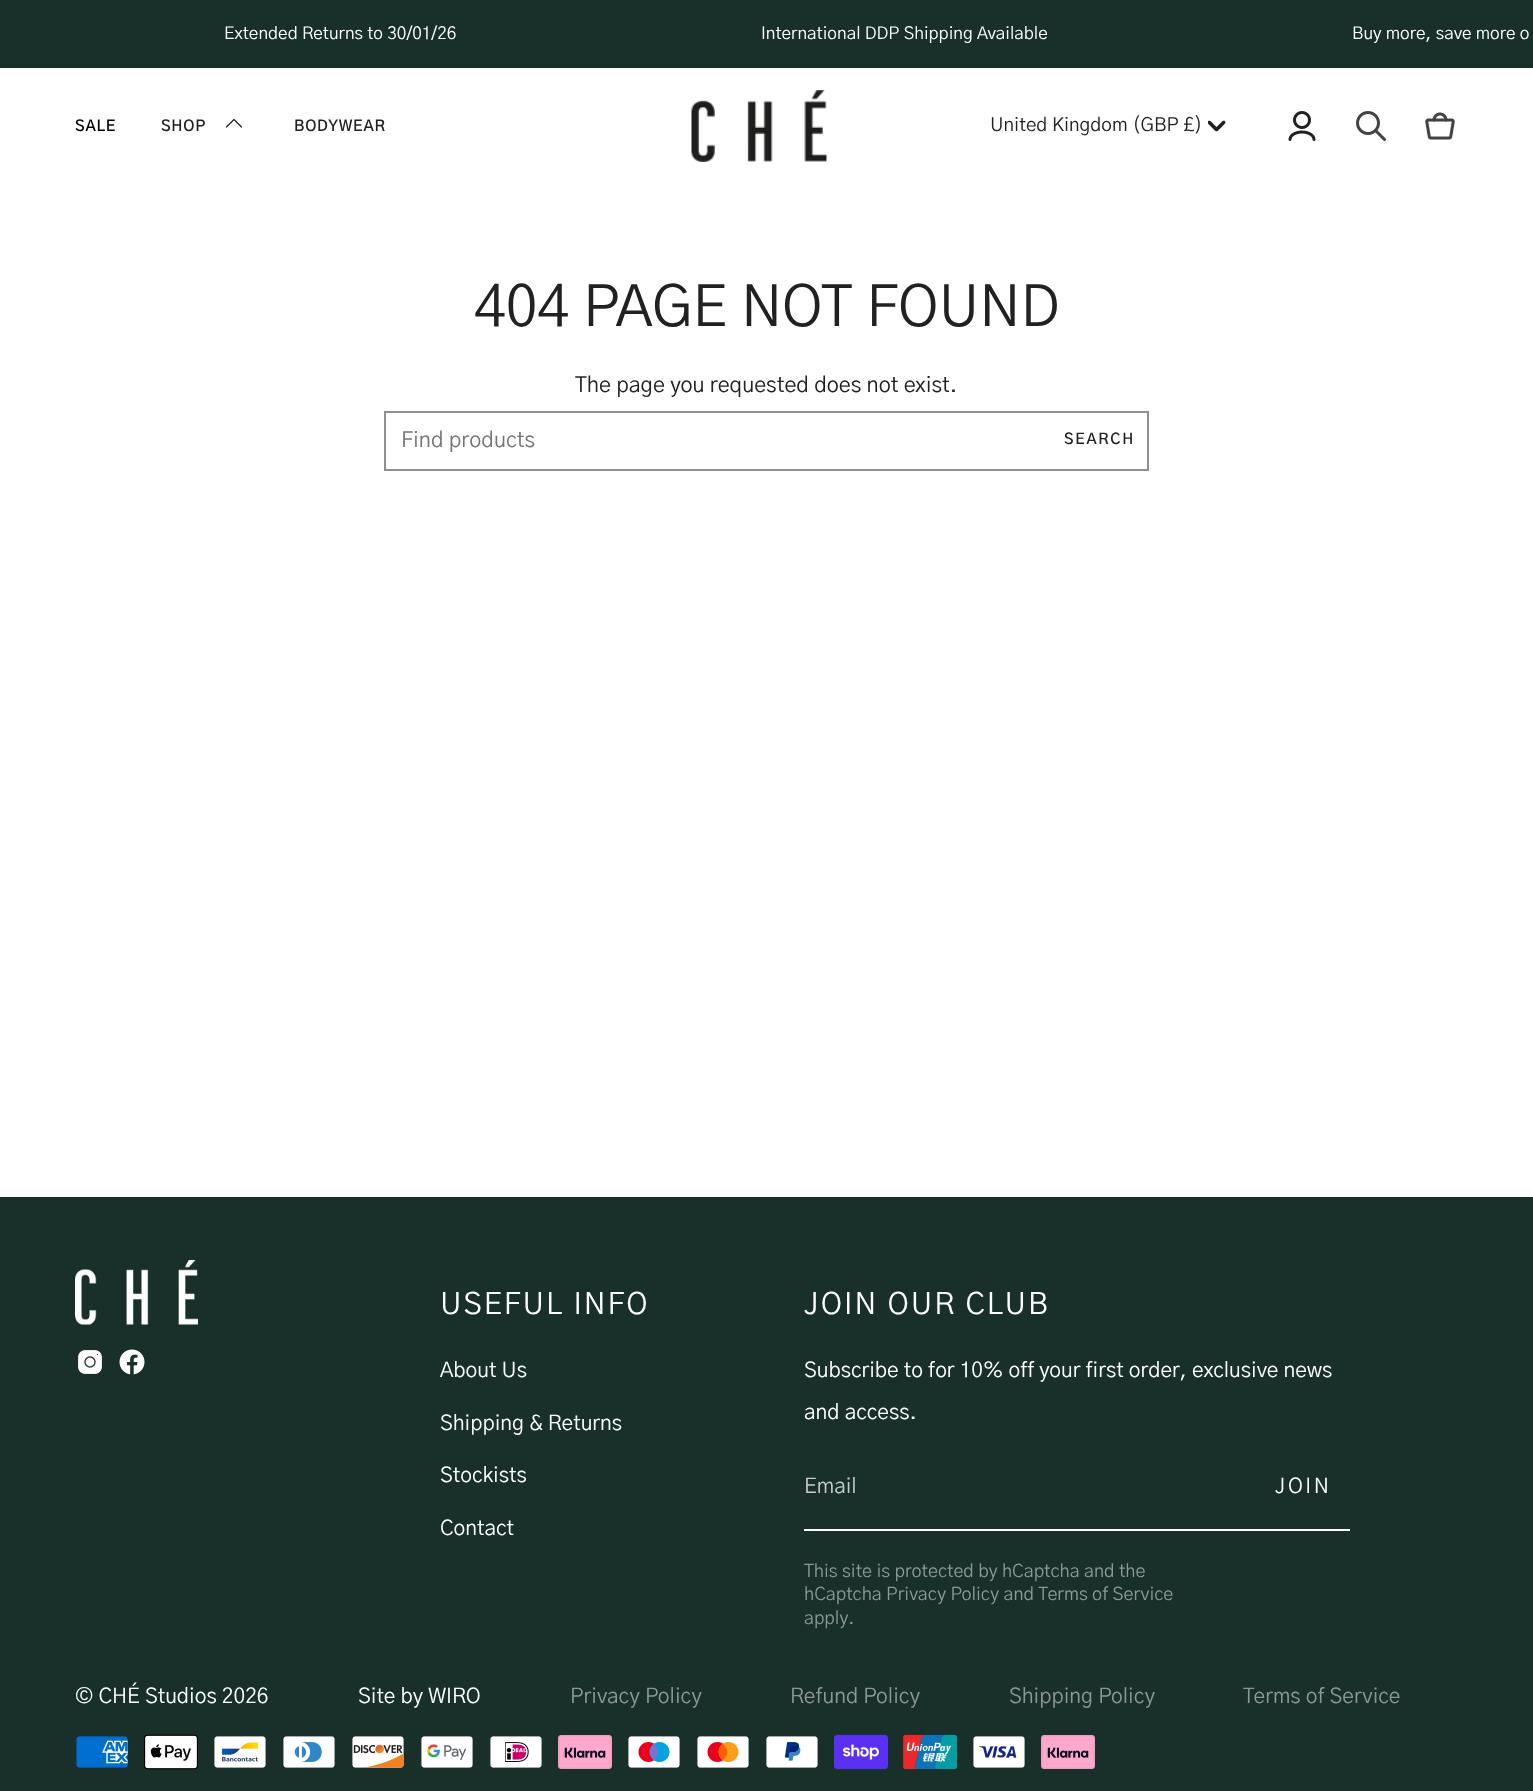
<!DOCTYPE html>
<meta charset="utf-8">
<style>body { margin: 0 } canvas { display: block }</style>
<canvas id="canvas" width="1533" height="1791"></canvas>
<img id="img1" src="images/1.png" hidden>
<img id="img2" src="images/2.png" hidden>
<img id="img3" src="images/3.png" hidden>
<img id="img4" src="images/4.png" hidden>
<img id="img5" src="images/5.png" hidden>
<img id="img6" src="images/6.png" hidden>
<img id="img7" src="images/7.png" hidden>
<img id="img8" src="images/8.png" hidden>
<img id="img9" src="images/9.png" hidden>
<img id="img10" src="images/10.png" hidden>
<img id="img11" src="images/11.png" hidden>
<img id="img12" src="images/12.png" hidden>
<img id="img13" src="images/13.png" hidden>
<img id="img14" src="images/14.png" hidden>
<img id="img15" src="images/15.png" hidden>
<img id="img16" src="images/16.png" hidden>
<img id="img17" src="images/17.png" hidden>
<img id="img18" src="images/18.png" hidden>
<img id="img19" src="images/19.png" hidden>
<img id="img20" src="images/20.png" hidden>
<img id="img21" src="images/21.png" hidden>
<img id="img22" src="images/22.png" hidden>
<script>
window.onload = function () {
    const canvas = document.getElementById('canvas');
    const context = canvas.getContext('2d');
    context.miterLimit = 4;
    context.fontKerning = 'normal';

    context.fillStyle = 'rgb(255, 255, 255)';
    context.fillRect(0, 0, 1533, 1791);
    context.fillStyle = 'rgb(24, 48, 41)';
    context.fillRect(0, 0, 1533, 68);
    context.beginPath();
    context.moveTo(226.5, 127);
    context.lineTo(234, 119.5);
    context.lineTo(241.5, 127);
    context.strokeStyle = 'rgb(33, 33, 33)';
    context.lineWidth = 1.2;
    context.lineCap = 'round';
    context.lineJoin = 'round';
    context.stroke();
    context.drawImage(document.getElementById('img1'), 691, 90, 136, 72);
    context.drawImage(document.getElementById('img2'), 1208, 120, 18, 12);
    context.drawImage(document.getElementById('img3'), 1288, 111, 28, 30);
    context.drawImage(document.getElementById('img4'), 1356, 111, 30, 30);
    context.drawImage(document.getElementById('img5'), 1425, 112, 30, 28);
    context.strokeStyle = 'rgb(144, 144, 144)';
    context.lineWidth = 2;
    context.lineJoin = 'miter';
    context.strokeRect(385, 412, 763, 58);
    context.fillRect(0, 1197, 1533, 594);
    context.drawImage(document.getElementById('img6'), 75, 1260, 123, 65);
    context.drawImage(document.getElementById('img7'), 78, 1350, 24, 24);
    context.drawImage(document.getElementById('img8'), 119, 1349, 26, 26);
    context.fillStyle = 'rgb(255, 255, 255)';
    context.fillRect(804, 1529, 546, 2);
    context.drawImage(document.getElementById('img9'), 76, 1736, 52, 32);
    context.drawImage(document.getElementById('img10'), 144, 1734, 54, 36);
    context.drawImage(document.getElementById('img11'), 214, 1736, 52, 32);
    context.drawImage(document.getElementById('img12'), 283, 1736, 52, 32);
    context.drawImage(document.getElementById('img13'), 352, 1736, 52, 32);
    context.drawImage(document.getElementById('img14'), 421, 1736, 52, 32);
    context.drawImage(document.getElementById('img15'), 490, 1736, 52, 32);
    context.drawImage(document.getElementById('img16'), 558, 1735, 54, 34);
    context.drawImage(document.getElementById('img17'), 628, 1736, 52, 32);
    context.drawImage(document.getElementById('img18'), 697, 1736, 52, 32);
    context.drawImage(document.getElementById('img19'), 766, 1736, 52, 32);
    context.drawImage(document.getElementById('img20'), 834, 1734, 54, 36);
    context.drawImage(document.getElementById('img21'), 903, 1734, 54, 36);
    context.drawImage(document.getElementById('img22'), 973, 1736, 52, 32);
    context.drawImage(document.getElementById('img16'), 1041, 1735, 54, 34);
    context.font = '17.25px "Gothic A1"';
    context.fillText('Extended Returns to 30/01/26', 224, 39);
    context.fillText('International DDP Shipping Available', 761, 39);
    context.fillText('Buy more, save more o', 1352, 39);
    context.letterSpacing = '0.75px';
    context.font = '600 15.25px "Gothic A1"';
    context.fillStyle = 'rgb(0, 0, 0)';
    context.fillText('SALE', 75, 131);
    context.fillStyle = 'rgb(33, 33, 33)';
    context.fillText('SHOP', 161, 131);
    context.fillText('BODYWEAR', 294, 131);
    context.letterSpacing = '0px';
    context.font = '18.9px "Gothic A1"';
    context.fillText('United Kingdom (GBP £)', 990, 131);
    context.font = '57px "Gothic A1"';
    context.fillText('404 PAGE NOT FOUND', 474, 326);
    context.font = '21.6px "Gothic A1"';
    context.fillText('The page you requested does not exist.', 575, 392);
    context.fillStyle = 'rgb(117, 117, 117)';
    context.fillText('Find products', 401, 447);
    context.letterSpacing = '1.75px';
    context.font = '600 15px "Gothic A1"';
    context.fillStyle = 'rgb(33, 33, 33)';
    context.fillText('SEARCH', 1064, 444);
    context.letterSpacing = '2px';
    context.font = '30px "Gothic A1"';
    context.fillStyle = 'rgb(255, 255, 255)';
    context.fillText('USEFUL INFO', 440, 1314);
    context.letterSpacing = '0px';
    context.font = '21px "Gothic A1"';
    context.fillText('About Us', 440, 1377);
    context.fillText('Shipping & Returns', 440, 1430);
    context.fillText('Stockists', 440, 1482);
    context.fillText('Contact', 440, 1535);
    context.letterSpacing = '2px';
    context.font = '30px "Gothic A1"';
    context.fillText('JOIN OUR CLUB', 804, 1314);
    context.letterSpacing = '0px';
    context.font = '21px "Gothic A1"';
    context.fillText('Subscribe to for 10% off your first order, exclusive news', 804, 1377);
    context.fillText('and access.', 804, 1419);
    context.fillStyle = 'rgb(197, 203, 202)';
    context.fillText('Email', 804, 1493);
    context.letterSpacing = '2.5px';
    context.fillStyle = 'rgb(255, 255, 255)';
    context.fillText('JOIN', 1275, 1493);
    context.letterSpacing = '0px';
    context.font = '18px "Gothic A1"';
    context.fillStyle = 'rgb(140, 152, 148)';
    context.fillText('This site is protected by hCaptcha and the', 804, 1577);
    context.fillText('hCaptcha Privacy Policy and Terms of Service', 804, 1600);
    context.fillText('apply.', 804, 1624);
    context.font = '21px "Gothic A1"';
    context.fillStyle = 'rgb(255, 255, 255)';
    context.fillText('© CHÉ Studios 2026', 75, 1703);
    context.fillText('Site by WIRO', 358, 1703);
    context.fillStyle = 'rgb(140, 152, 148)';
    context.fillText('Privacy Policy', 570, 1703);
    context.fillText('Refund Policy', 790, 1703);
    context.fillText('Shipping Policy', 1009, 1703);
    context.fillText('Terms of Service', 1243, 1703);
};
</script>
